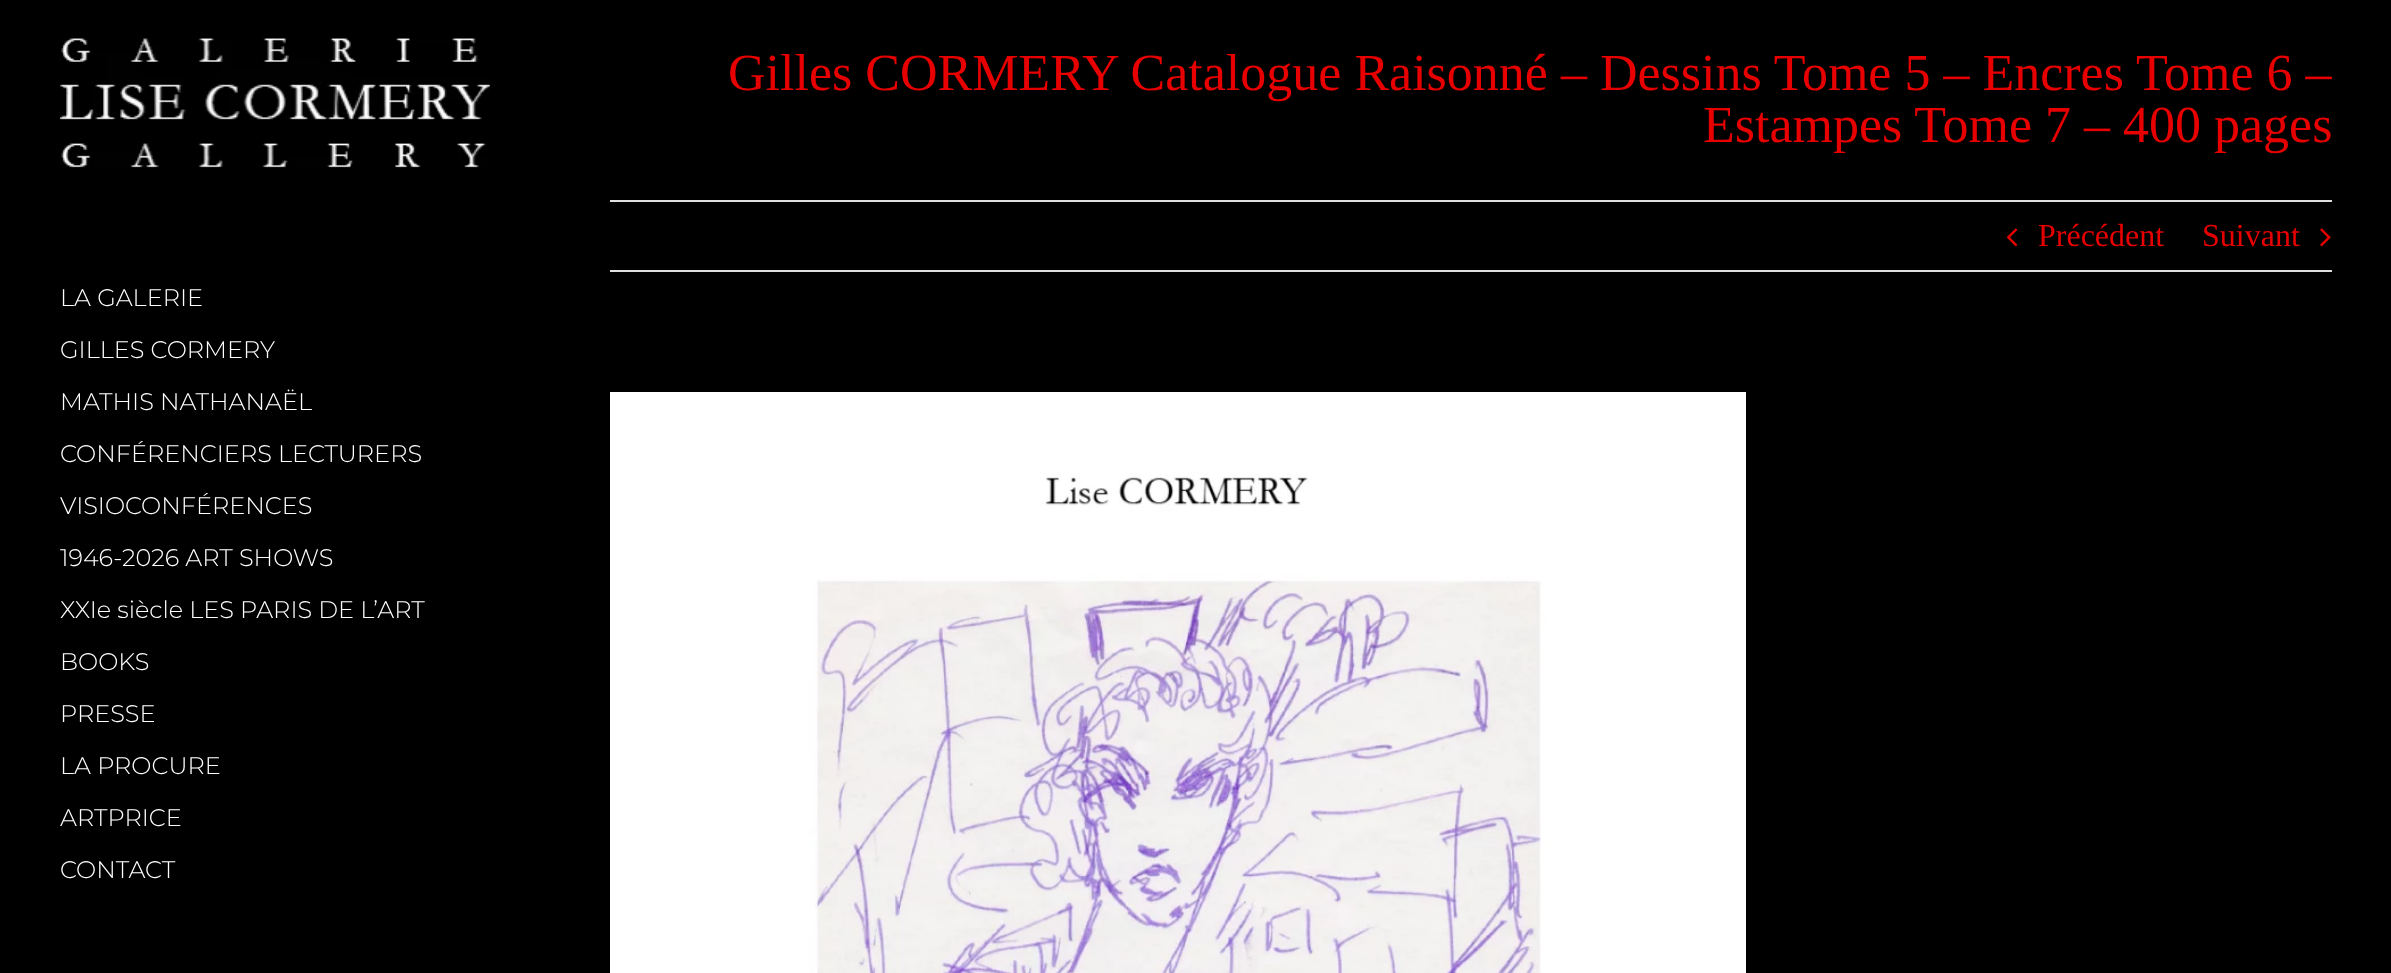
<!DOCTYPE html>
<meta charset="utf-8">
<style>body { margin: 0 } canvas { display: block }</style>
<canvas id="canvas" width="2391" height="973"></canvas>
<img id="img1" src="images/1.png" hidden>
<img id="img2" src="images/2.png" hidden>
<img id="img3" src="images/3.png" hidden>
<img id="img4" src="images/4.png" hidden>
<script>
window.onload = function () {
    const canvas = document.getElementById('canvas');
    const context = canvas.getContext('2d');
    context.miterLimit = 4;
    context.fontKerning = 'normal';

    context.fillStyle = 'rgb(0, 0, 0)';
    context.fillRect(0, 0, 2391, 973);
    context.fillStyle = 'rgb(224, 222, 222)';
    context.fillRect(610, 200, 1722, 2);
    context.fillRect(610, 270, 1722, 2);
    context.drawImage(document.getElementById('img1'), 2006, 228, 12, 19);
    context.drawImage(document.getElementById('img2'), 2320, 228, 11, 19);
    context.drawImage(document.getElementById('img3'), 610, 392, 1136, 581);
    context.drawImage(document.getElementById('img4'), 60, 38, 430, 130);
    context.font = '52px Liberation Serif';
    context.fillStyle = 'rgb(232, 0, 0)';
    context.fillText('Gilles CORMERY Catalogue Raisonné – Dessins Tome 5 – Encres Tome 6 –', 728, 90);
    context.fillText('Estampes Tome 7 – 400 pages', 1703, 142);
    context.font = '32px Liberation Serif';
    context.fillText('Précédent', 2038, 246);
    context.fillText('Suivant', 2202, 246);
    context.font = '100 24px Montserrat';
    context.fillStyle = 'rgb(255, 255, 255)';
    context.fillText('LA GALERIE', 60, 306);
    context.fillText('GILLES CORMERY', 60, 358);
    context.fillText('MATHIS NATHANAËL', 60, 410);
    context.fillText('CONFÉRENCIERS LECTURERS', 60, 462);
    context.fillText('VISIOCONFÉRENCES', 60, 514);
    context.fillText('1946-2026 ART SHOWS', 60, 566);
    context.fillText('XXIe siècle LES PARIS DE L’ART', 60, 618);
    context.fillText('BOOKS', 60, 670);
    context.fillText('PRESSE', 60, 722);
    context.fillText('LA PROCURE', 60, 774);
    context.fillText('ARTPRICE', 60, 826);
    context.fillText('CONTACT', 60, 878);
};
</script>
